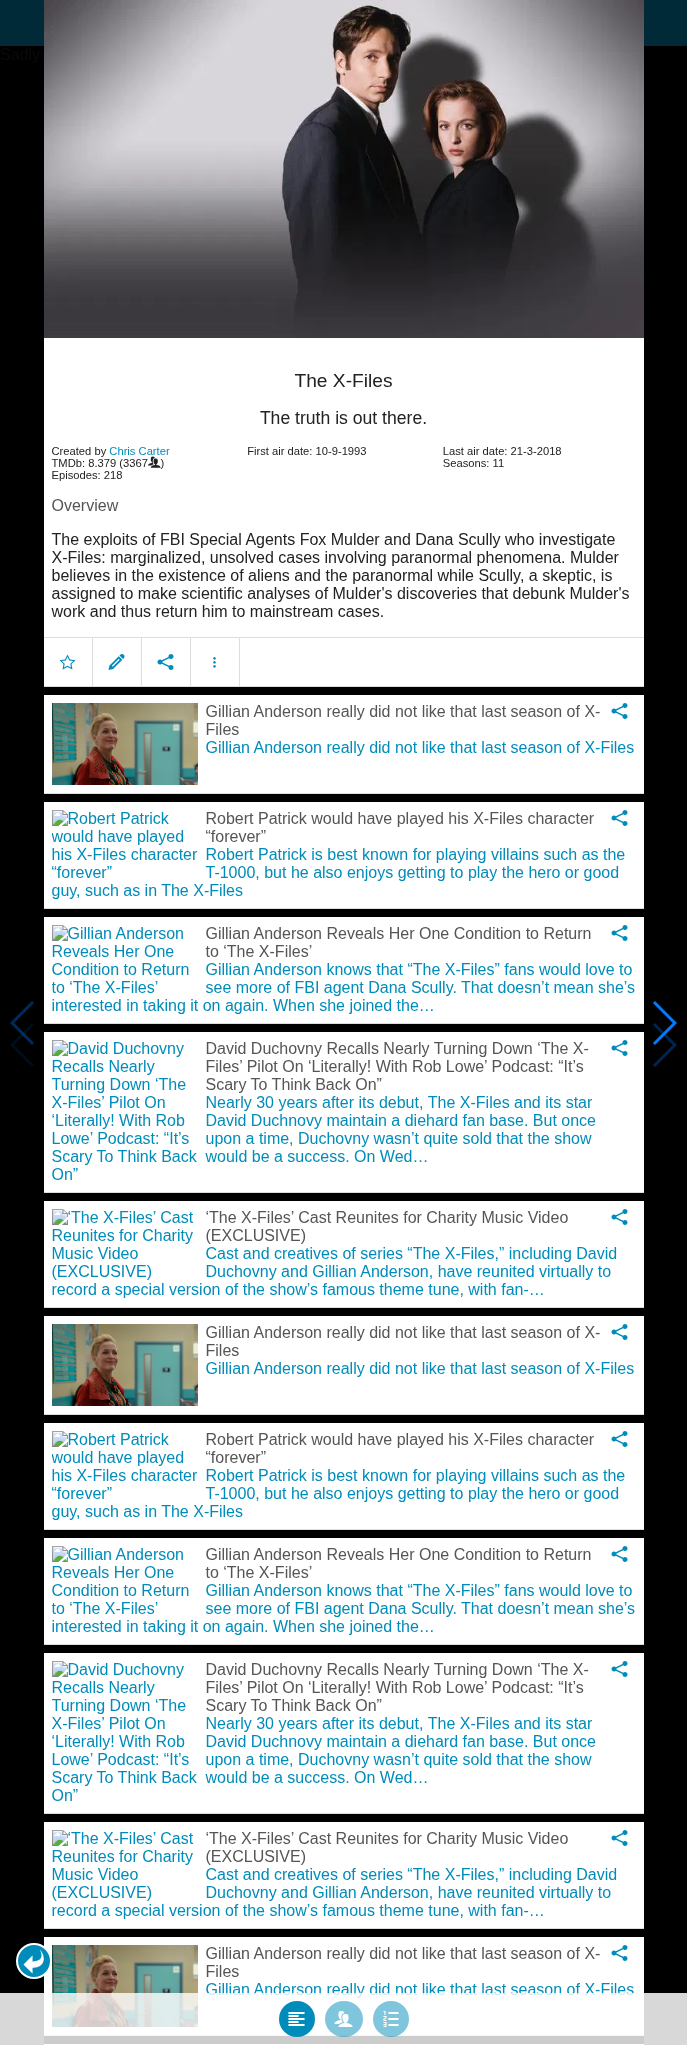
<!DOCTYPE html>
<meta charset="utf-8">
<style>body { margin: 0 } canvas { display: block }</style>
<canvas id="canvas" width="687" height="2045"></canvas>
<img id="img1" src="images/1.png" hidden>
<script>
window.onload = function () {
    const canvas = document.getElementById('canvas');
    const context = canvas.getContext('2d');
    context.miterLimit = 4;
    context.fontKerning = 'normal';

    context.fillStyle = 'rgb(255, 255, 255)';
    context.fillRect(0, 0, 687, 2045);
    context.drawImage(document.getElementById('img1'), 0, 0, 687, 2045);
};
</script>
